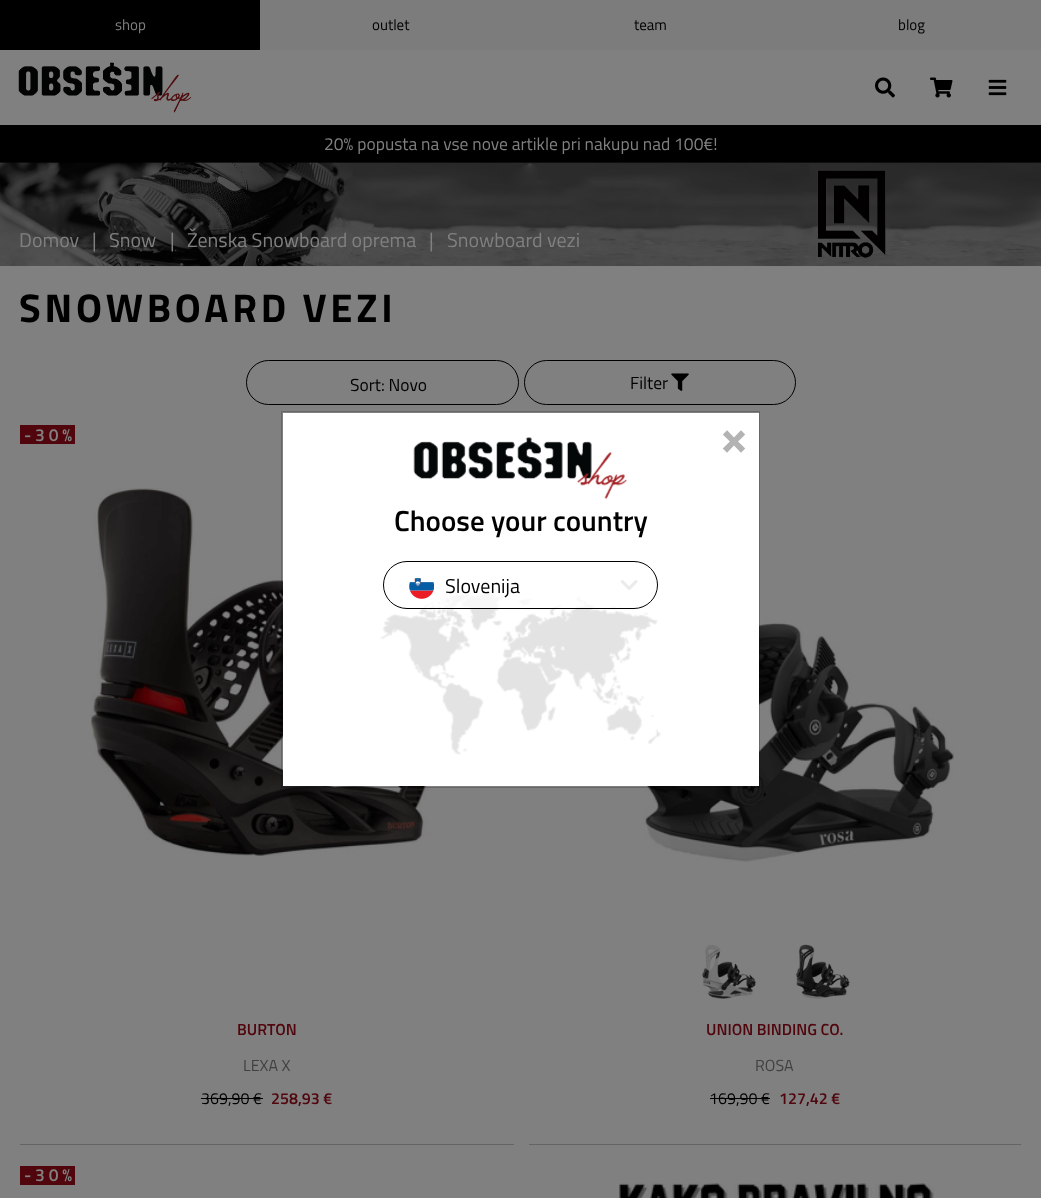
<!DOCTYPE html>
<meta charset="utf-8">
<style>body { margin: 0 } canvas { display: block }</style>
<canvas id="canvas" width="1041" height="1198"></canvas>
<img id="img1" src="images/1.png" hidden>
<img id="img2" src="images/2.png" hidden>
<img id="img3" src="images/3.png" hidden>
<img id="img4" src="images/4.png" hidden>
<img id="img5" src="images/5.png" hidden>
<img id="img6" src="images/6.png" hidden>
<img id="img7" src="images/7.png" hidden>
<img id="img8" src="images/8.png" hidden>
<img id="img9" src="images/9.png" hidden>
<img id="img10" src="images/10.png" hidden>
<img id="img11" src="images/11.png" hidden>
<img id="img12" src="images/12.png" hidden>
<img id="img13" src="images/13.png" hidden>
<img id="img14" src="images/14.png" hidden>
<img id="img15" src="images/15.png" hidden>
<script>
window.onload = function () {
    const canvas = document.getElementById('canvas');
    const context = canvas.getContext('2d');
    context.miterLimit = 4;
    context.fontKerning = 'normal';

    context.fillStyle = 'rgb(128, 128, 128)';
    context.fillRect(0, 0, 1041, 1198);
    context.fillStyle = 'rgb(124, 124, 124)';
    context.fillRect(260, 0, 781, 50);
    context.fillStyle = 'rgb(0, 0, 0)';
    context.fillRect(0, 0, 260, 50);
    context.drawImage(document.getElementById('img1'), 18, 62, 174, 51);
    context.drawImage(document.getElementById('img2'), 875, 77, 20, 21);
    context.drawImage(document.getElementById('img3'), 930, 77, 23, 21);
    context.drawImage(document.getElementById('img4'), 988, 79, 19, 17);
    context.fillRect(0, 125, 1041, 38);
    context.drawImage(document.getElementById('img5'), 0, 162, 1041, 105);
    context.beginPath();
    context.roundRect(246.5, 360.5, 272, 44, 22);
    context.strokeStyle = 'rgb(0, 0, 0)';
    context.stroke();
    context.beginPath();
    context.roundRect(524.5, 360.5, 271, 44, 22);
    context.stroke();
    context.drawImage(document.getElementById('img6'), 671, 373, 18, 18);
    context.fillStyle = 'rgb(81, 6, 13)';
    context.fillRect(20, 425, 55, 19);
    context.drawImage(document.getElementById('img7'), 90, 488, 356, 368);
    context.fillStyle = 'rgb(0, 0, 0)';
    context.fillRect(201, 1098, 62, 1);
    context.fillStyle = 'rgb(100, 100, 100)';
    context.fillRect(20, 1144, 494, 1);
    context.drawImage(document.getElementById('img8'), 606, 512, 348, 350);
    context.drawImage(document.getElementById('img9'), 702, 945, 55, 54);
    context.drawImage(document.getElementById('img10'), 796, 944, 54, 55);
    context.fillStyle = 'rgb(0, 0, 0)';
    context.fillRect(710, 1098, 60, 1);
    context.fillStyle = 'rgb(100, 100, 100)';
    context.fillRect(529, 1144, 492, 1);
    context.fillStyle = 'rgb(81, 6, 13)';
    context.fillRect(20, 1166, 55, 19);
    context.drawImage(document.getElementById('img11'), 619, 1183, 315, 15);
    context.fillStyle = 'rgb(255, 255, 255)';
    context.fillRect(283, 413, 476, 373);
    context.strokeStyle = 'rgba(0, 0, 0, 0.2)';
    context.strokeRect(281.5, 411.5, 478, 376);
    context.drawImage(document.getElementById('img12'), 413, 437, 214, 63);
    context.drawImage(document.getElementById('img13'), 380, 592, 281, 163);
    context.fillStyle = 'rgba(255, 255, 255, 0.7)';
    context.beginPath();
    context.roundRect(383.5, 561.5, 274, 47, 23.5);
    context.fill();
    context.strokeStyle = 'rgb(0, 0, 0)';
    context.stroke();
    context.drawImage(document.getElementById('img14'), 409, 577, 25, 22);
    context.drawImage(document.getElementById('img15'), 620, 580, 18, 10);
    context.font = '15px Titillium Web';
    context.fillStyle = 'rgb(128, 128, 128)';
    context.fillText('shop', 115, 30);
    context.fillStyle = 'rgb(0, 0, 0)';
    context.fillText('outlet', 372, 30);
    context.fillText('team', 634, 30);
    context.fillText('blog', 898, 30);
    context.font = '17.5px Titillium Web';
    context.fillStyle = 'rgb(128, 128, 128)';
    context.fillText('20% popusta na vse nove artikle pri nakupu nad 100€!', 324, 150);
    context.font = '20px Titillium Web';
    context.fillText('Domov', 19, 247);
    context.fillText('|', 92, 247);
    context.fillText('Snow', 109, 247);
    context.fillText('|', 170, 247);
    context.fillText('Ženska Snowboard oprema', 187, 247);
    context.fillText('|', 429, 247);
    context.fillText('Snowboard vezi', 447, 247);
    context.letterSpacing = '3.75px';
    context.font = 'bold 40px Titillium Web';
    context.fillStyle = 'rgb(0, 0, 0)';
    context.fillText('SNOWBOARD VEZI', 19, 322);
    context.letterSpacing = '0px';
    context.font = '17.5px Titillium Web';
    context.fillText('Sort: Novo', 350, 391);
    context.fillText('Filter', 630, 389);
    context.letterSpacing = '3.75px';
    context.font = '600 17.5px Titillium Web';
    context.fillStyle = 'rgb(128, 128, 128)';
    context.fillText('-30%', 24, 441);
    context.letterSpacing = '0px';
    context.font = '600 16px Titillium Web';
    context.fillStyle = 'rgb(81, 6, 13)';
    context.fillText('BURTON', 237, 1035);
    context.font = '16px Titillium Web';
    context.fillStyle = 'rgb(64, 64, 64)';
    context.fillText('LEXA X', 243, 1071);
    context.fillStyle = 'rgb(0, 0, 0)';
    context.fillText('369,90 €', 201, 1104);
    context.font = '600 16px Titillium Web';
    context.fillStyle = 'rgb(81, 6, 13)';
    context.fillText('258,93 €', 271, 1104);
    context.fillText('UNION BINDING CO.', 706, 1035);
    context.font = '16px Titillium Web';
    context.fillStyle = 'rgb(64, 64, 64)';
    context.fillText('ROSA', 755, 1071);
    context.fillStyle = 'rgb(0, 0, 0)';
    context.fillText('169,90 €', 709, 1104);
    context.font = '600 16px Titillium Web';
    context.fillStyle = 'rgb(81, 6, 13)';
    context.fillText('127,42 €', 779, 1104);
    context.letterSpacing = '3.75px';
    context.font = '600 17.5px Titillium Web';
    context.fillStyle = 'rgb(128, 128, 128)';
    context.fillText('-30%', 24, 1181);
    context.letterSpacing = '0px';
    context.font = 'bold 50px Titillium Web';
    context.fillStyle = 'rgb(179, 179, 179)';
    context.fillText('×', 720, 454);
    context.font = '600 29px Titillium Web';
    context.fillStyle = 'rgb(0, 0, 0)';
    context.fillText('Choose your country', 394, 531);
    context.font = '20px Titillium Web';
    context.fillText('Slovenija', 445, 593);
};
</script>
